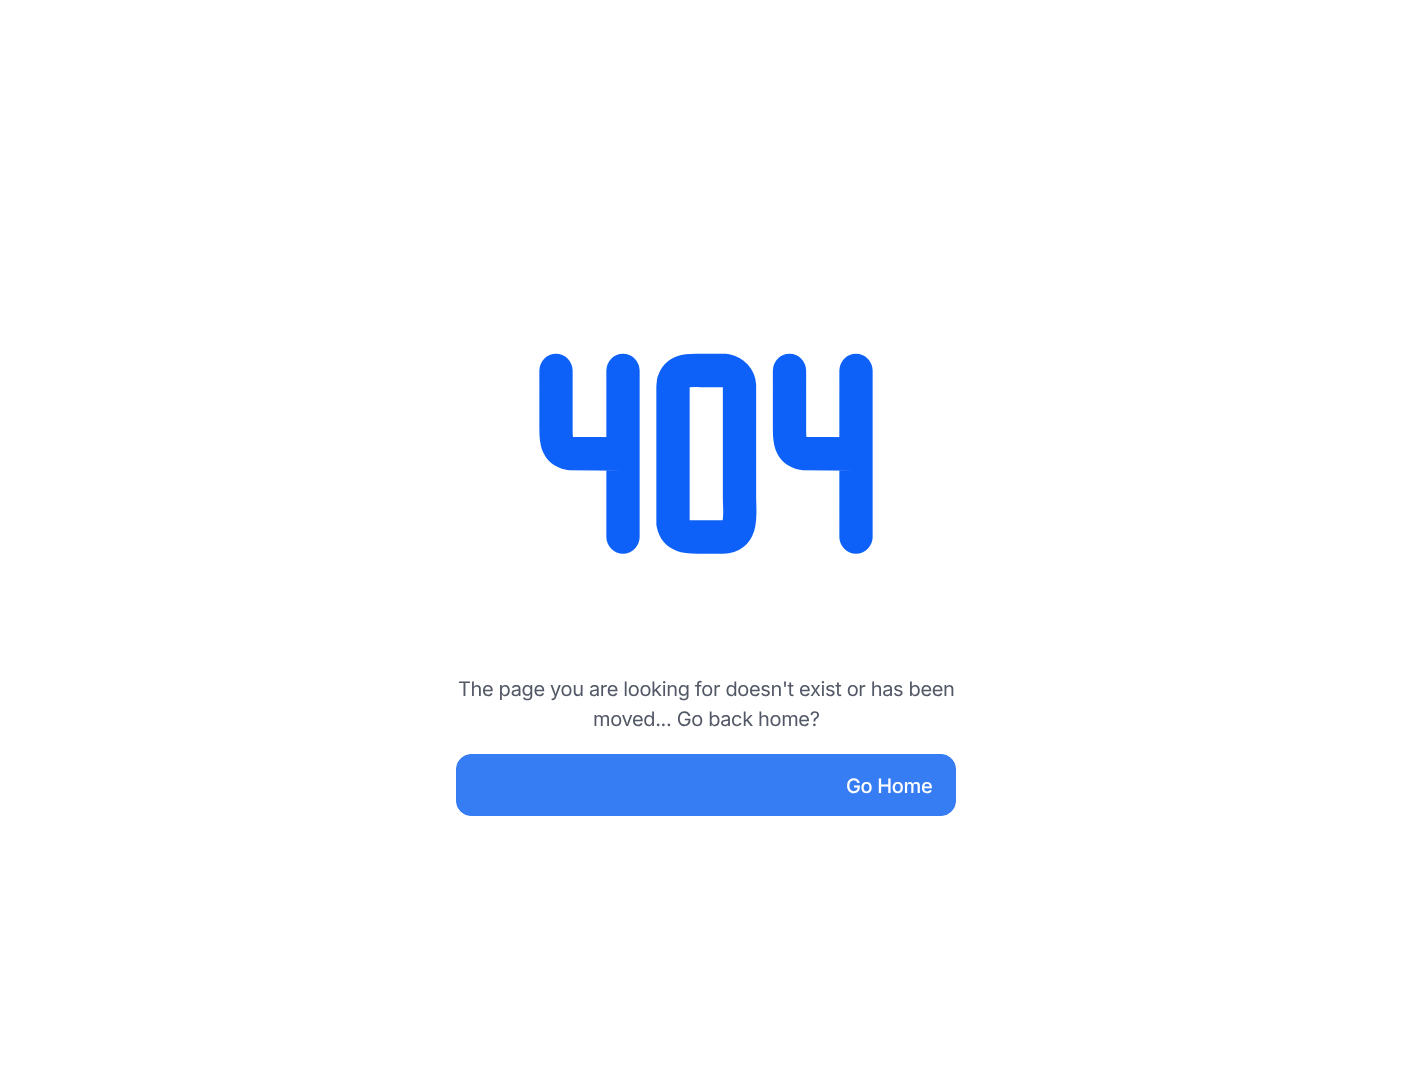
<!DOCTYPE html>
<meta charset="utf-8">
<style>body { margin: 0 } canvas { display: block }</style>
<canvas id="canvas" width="1412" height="1070"></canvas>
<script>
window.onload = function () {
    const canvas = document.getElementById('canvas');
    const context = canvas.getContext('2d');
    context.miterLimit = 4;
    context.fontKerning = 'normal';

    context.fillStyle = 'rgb(255, 255, 255)';
    context.fillRect(0, 0, 1412, 1070);
    context.beginPath();
    context.moveTo(556, 370.5);
    context.lineTo(556, 426);
    context.bezierCurveTo(556, 437.5, 555, 450.5, 569.5, 453.5);
    context.lineTo(623, 454);
    context.moveTo(623, 370.5);
    context.lineTo(623, 537);
    context.moveTo(789.5, 370.5);
    context.lineTo(789.5, 426);
    context.bezierCurveTo(789.5, 437.5, 788.5, 450.5, 803, 453.5);
    context.lineTo(856, 454);
    context.moveTo(856, 370.5);
    context.lineTo(856, 537);
    context.moveTo(673, 387);
    context.lineTo(673, 523.5);
    context.bezierCurveTo(676, 538, 689, 537, 700.5, 537);
    context.lineTo(723, 537);
    context.bezierCurveTo(744, 537, 739.5, 511.5, 739.5, 498);
    context.lineTo(739.5, 385.5);
    context.bezierCurveTo(739, 378, 733.5, 372, 726, 370.5);
    context.lineTo(700.5, 370.5);
    context.bezierCurveTo(689.5, 370.5, 677.5, 369, 673.5, 382);
    context.closePath();
    context.strokeStyle = 'rgb(13, 97, 248)';
    context.lineWidth = 33.3;
    context.lineCap = 'round';
    context.lineJoin = 'round';
    context.stroke();
    context.fillStyle = 'rgb(54, 124, 243)';
    context.beginPath();
    context.roundRect(456.5, 754.5, 499, 61, 14.5);
    context.fill();
    context.strokeStyle = 'rgb(54, 124, 243)';
    context.lineWidth = 1;
    context.lineJoin = 'miter';
    context.stroke();
    context.letterSpacing = '-0.35px';
    context.font = '20px Inter';
    context.fillStyle = 'rgb(82, 88, 102)';
    context.fillText('The page you are looking for doesn\'t exist or has been', 458, 696);
    context.fillText('moved... Go back home?', 593, 726);
    context.font = '500 20px Inter';
    context.fillStyle = 'rgb(255, 255, 255)';
    context.fillText('Go Home', 846, 793);
};
</script>
